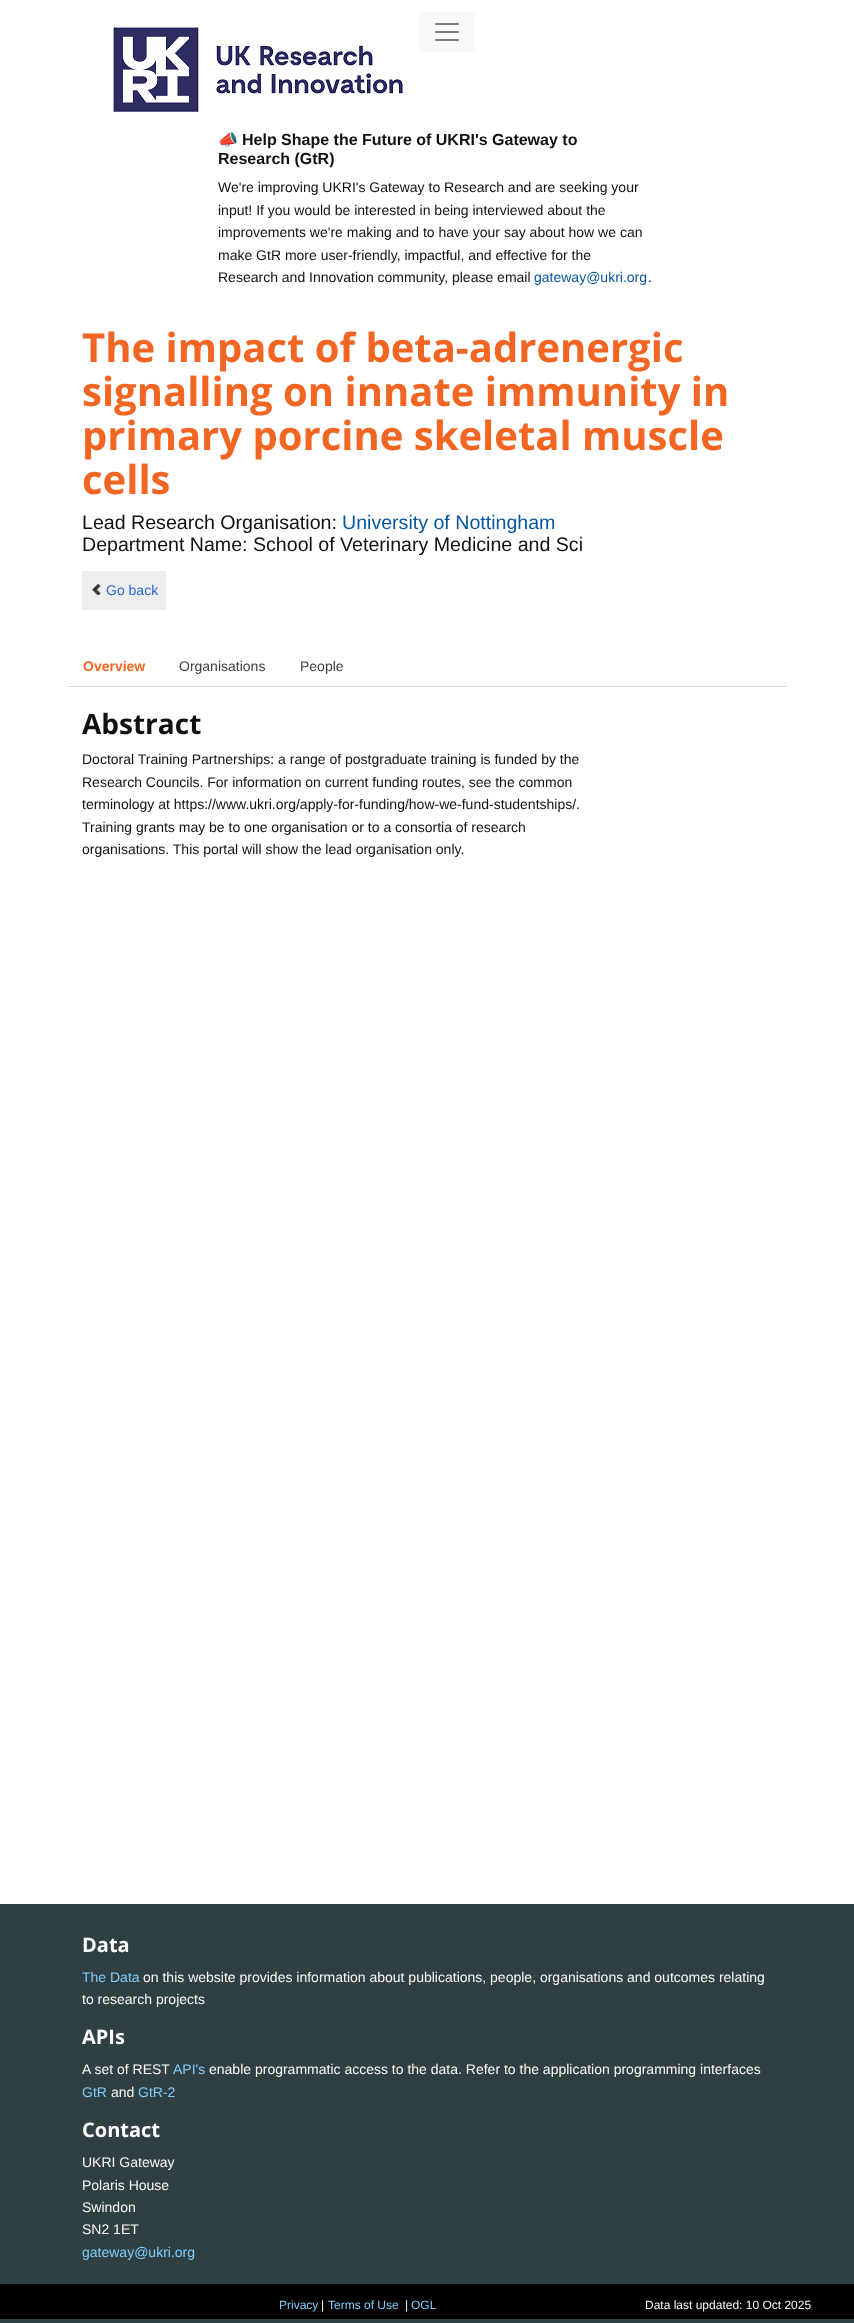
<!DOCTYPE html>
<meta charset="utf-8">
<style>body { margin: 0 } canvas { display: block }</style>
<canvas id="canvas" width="854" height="2323"></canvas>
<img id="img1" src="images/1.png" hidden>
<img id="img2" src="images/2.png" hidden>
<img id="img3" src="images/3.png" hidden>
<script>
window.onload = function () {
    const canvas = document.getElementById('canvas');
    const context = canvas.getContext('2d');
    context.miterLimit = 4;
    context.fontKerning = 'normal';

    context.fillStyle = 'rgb(255, 255, 255)';
    context.fillRect(0, 0, 854, 2323);
    context.drawImage(document.getElementById('img1'), 113, 27, 290, 85);
    context.fillStyle = 'rgb(248, 249, 250)';
    context.beginPath();
    context.roundRect(419, 12, 56, 40, 4);
    context.fill();
    context.drawImage(document.getElementById('img2'), 435, 23, 24, 18);
    context.fillStyle = 'rgb(238, 238, 238)';
    context.fillRect(82, 571, 84, 39);
    context.drawImage(document.getElementById('img3'), 92, 584, 9, 11);
    context.fillStyle = 'rgb(221, 221, 221)';
    context.fillRect(67, 686, 720, 1);
    context.fillStyle = 'rgb(48, 63, 66)';
    context.fillRect(0, 1904, 854, 419);
    context.fillStyle = 'rgb(0, 0, 0)';
    context.fillRect(0, 2284, 854, 35);
    context.font = 'bold 16px Noto Color Emoji';
    context.fillStyle = 'rgb(17, 17, 17)';
    context.fillText('📣', 218, 145);
    context.font = 'bold 16px Liberation Sans';
    context.fillText('Help Shape the Future of UKRI\'s Gateway to', 242, 145);
    context.fillText('Research (GtR)', 218, 164);
    context.font = '14px Liberation Sans';
    context.fillText('We\'re improving UKRI\'s Gateway to Research and are seeking your', 218, 192);
    context.fillText('input! If you would be interested in being interviewed about the', 218, 215);
    context.fillText('improvements we\'re making and to have your say about how we can', 218, 237);
    context.fillText('make GtR more user-friendly, impactful, and effective for the', 218, 260);
    context.fillText('Research and Innovation community, please email', 218, 282);
    context.fillStyle = 'rgb(7, 86, 158)';
    context.fillText('gateway@ukri.org', 534, 282);
    context.fillStyle = 'rgb(17, 17, 17)';
    context.fillText('.', 648, 282);
    context.font = 'bold 40px Open Sans';
    context.fillStyle = 'rgb(242, 101, 34)';
    context.fillText('The impact of beta-adrenergic', 82, 362);
    context.fillText('signalling on innate immunity in', 82, 406);
    context.fillText('primary porcine skeletal muscle', 82, 450);
    context.fillText('cells', 82, 494);
    context.font = '19.6px Liberation Sans';
    context.fillStyle = 'rgb(17, 17, 17)';
    context.fillText('Lead Research Organisation:', 82, 529);
    context.fillStyle = 'rgb(7, 86, 158)';
    context.fillText('University of Nottingham', 342, 529);
    context.fillStyle = 'rgb(17, 17, 17)';
    context.fillText('Department Name: School of Veterinary Medicine and Sci', 82, 551);
    context.font = '14px Liberation Sans';
    context.fillStyle = 'rgb(41, 103, 205)';
    context.fillText('Go back', 106, 595);
    context.font = 'bold 14px Liberation Sans';
    context.fillStyle = 'rgb(242, 101, 34)';
    context.fillText('Overview', 83, 671);
    context.font = '14px Liberation Sans';
    context.fillStyle = 'rgb(63, 61, 61)';
    context.fillText('Organisations', 179, 671);
    context.fillText('People', 300, 671);
    context.font = 'bold 28px Open Sans';
    context.fillStyle = 'rgb(17, 17, 17)';
    context.fillText('Abstract', 82, 734);
    context.font = '14px Liberation Sans';
    context.fillText('Doctoral Training Partnerships: a range of postgraduate training is funded by the', 82, 764);
    context.fillText('Research Councils. For information on current funding routes, see the common', 82, 787);
    context.fillText('terminology at https://www.ukri.org/apply-for-funding/how-we-fund-studentships/.', 82, 809);
    context.fillText('Training grants may be to one organisation or to a consortia of research', 82, 832);
    context.fillText('organisations. This portal will show the lead organisation only.', 82, 854);
    context.font = 'bold 20px Open Sans';
    context.fillStyle = 'rgb(255, 255, 255)';
    context.fillText('Data', 82, 1952);
    context.font = '14px Liberation Sans';
    context.fillStyle = 'rgb(125, 206, 255)';
    context.fillText('The Data', 82, 1982);
    context.fillStyle = 'rgb(248, 248, 248)';
    context.fillText('on this website provides information about publications, people, organisations and outcomes relating', 143, 1982);
    context.fillText('to research projects', 82, 2004);
    context.font = 'bold 20px Open Sans';
    context.fillStyle = 'rgb(255, 255, 255)';
    context.fillText('APIs', 82, 2044);
    context.font = '14px Liberation Sans';
    context.fillStyle = 'rgb(248, 248, 248)';
    context.fillText('A set of REST', 82, 2074);
    context.fillStyle = 'rgb(125, 206, 255)';
    context.fillText('API\'s', 173, 2074);
    context.fillStyle = 'rgb(248, 248, 248)';
    context.fillText('enable programmatic access to the data. Refer to the application programming interfaces', 209, 2074);
    context.fillStyle = 'rgb(125, 206, 255)';
    context.fillText('GtR', 82, 2097);
    context.fillStyle = 'rgb(248, 248, 248)';
    context.fillText('and', 111, 2097);
    context.fillStyle = 'rgb(125, 206, 255)';
    context.fillText('GtR-2', 138, 2097);
    context.font = 'bold 20px Open Sans';
    context.fillStyle = 'rgb(255, 255, 255)';
    context.fillText('Contact', 82, 2137);
    context.font = '14px Liberation Sans';
    context.fillStyle = 'rgb(248, 248, 248)';
    context.fillText('UKRI Gateway', 82, 2167);
    context.fillText('Polaris House', 82, 2190);
    context.fillText('Swindon', 82, 2212);
    context.fillText('SN2 1ET', 82, 2234);
    context.fillStyle = 'rgb(125, 206, 255)';
    context.fillText('gateway@ukri.org', 82, 2257);
    context.font = '12px Liberation Sans';
    context.fillText('Privacy', 279, 2309);
    context.fillStyle = 'rgb(248, 248, 248)';
    context.fillText('|', 321, 2309);
    context.fillStyle = 'rgb(125, 206, 255)';
    context.fillText('Terms of Use', 328, 2309);
    context.fillStyle = 'rgb(248, 248, 248)';
    context.fillText('|', 405, 2309);
    context.fillStyle = 'rgb(125, 206, 255)';
    context.fillText('OGL', 411, 2309);
    context.fillStyle = 'rgb(248, 248, 248)';
    context.fillText('Data last updated: 10 Oct 2025', 645, 2309);
};
</script>
